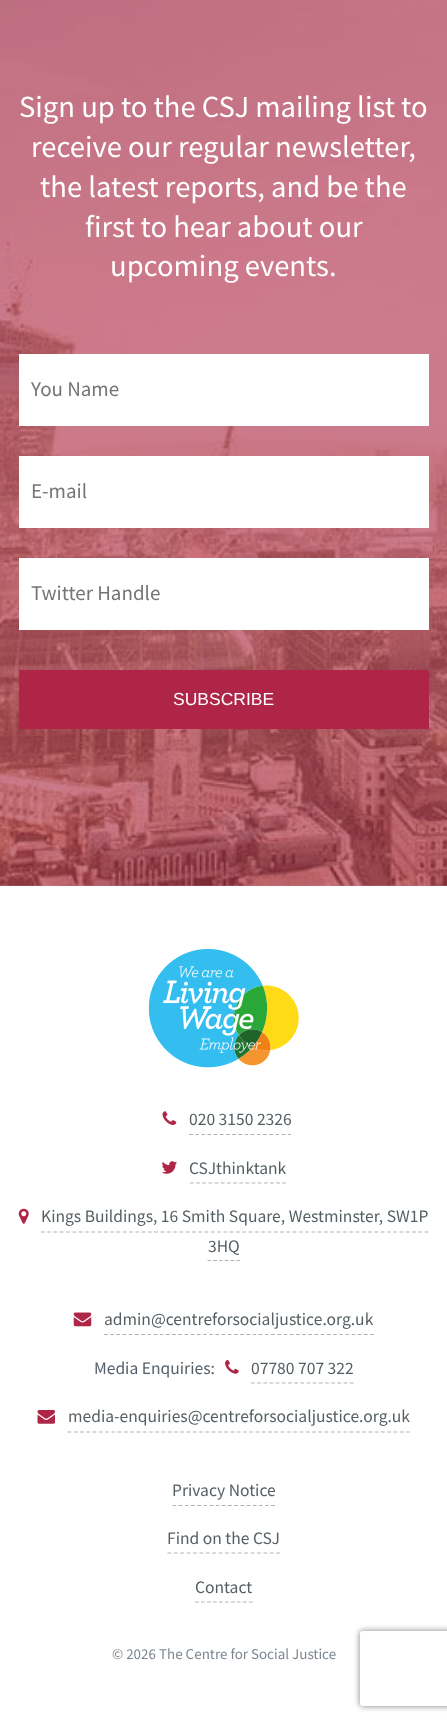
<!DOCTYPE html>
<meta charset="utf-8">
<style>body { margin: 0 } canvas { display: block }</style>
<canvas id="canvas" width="447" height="1723"></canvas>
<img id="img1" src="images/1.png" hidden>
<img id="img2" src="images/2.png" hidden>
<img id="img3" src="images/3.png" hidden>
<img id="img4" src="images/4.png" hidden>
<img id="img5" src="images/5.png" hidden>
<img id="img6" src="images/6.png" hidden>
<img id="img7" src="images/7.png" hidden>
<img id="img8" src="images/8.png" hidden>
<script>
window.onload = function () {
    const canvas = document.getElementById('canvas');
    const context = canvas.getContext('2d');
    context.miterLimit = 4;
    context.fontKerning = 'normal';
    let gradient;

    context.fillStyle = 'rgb(255, 255, 255)';
    context.fillRect(0, 0, 447, 1723);
    context.drawImage(document.getElementById('img1'), 0, 0, 447, 886);
    gradient = context.createLinearGradient(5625, 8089, -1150, 1073);
    gradient.addColorStop(0, 'rgba(175, 37, 70, 0.6)');
    gradient.addColorStop(0.25, 'rgba(149, 32, 60, 0.6)');
    gradient.addColorStop(0.5, 'rgba(188, 40, 75, 0.6)');
    gradient.addColorStop(0.75, 'rgba(149, 32, 60, 0.6)');
    gradient.addColorStop(1, 'rgba(175, 37, 70, 0.6)');
    context.fillStyle = gradient;
    context.fillRect(0, 0, 447, 886);
    context.fillStyle = 'rgb(255, 255, 255)';
    context.fillRect(19, 354, 410, 72);
    context.fillRect(19, 456, 410, 72);
    context.fillRect(19, 558, 410, 72);
    context.fillStyle = 'rgb(175, 37, 72)';
    context.fillRect(19, 670, 410, 59);
    context.drawImage(document.getElementById('img2'), 149, 949, 150, 119);
    context.drawImage(document.getElementById('img3'), 162, 1111, 15, 14);
    context.beginPath();
    context.moveTo(189, 1134.5);
    context.lineTo(291, 1134.5);
    context.strokeStyle = 'rgb(179, 179, 179)';
    context.lineWidth = 1.2;
    context.setLineDash([3.75, 2.42]);
    context.stroke();
    context.drawImage(document.getElementById('img4'), 161, 1161, 16, 13);
    context.beginPath();
    context.moveTo(190, 1183);
    context.lineTo(286, 1183);
    context.setLineDash([3.75, 2.41]);
    context.stroke();
    context.drawImage(document.getElementById('img5'), 18, 1208, 11, 16);
    context.beginPath();
    context.moveTo(41, 1232);
    context.lineTo(429, 1232);
    context.setLineDash([3.75, 2.54]);
    context.stroke();
    context.beginPath();
    context.moveTo(207.5, 1260.5);
    context.lineTo(240, 1260.5);
    context.setLineDash([3.75, 2]);
    context.stroke();
    context.drawImage(document.getElementById('img6'), 73, 1312, 19, 15);
    context.beginPath();
    context.moveTo(104, 1334.5);
    context.lineTo(374, 1334.5);
    context.setLineDash([3.75, 2.44]);
    context.stroke();
    context.drawImage(document.getElementById('img7'), 225, 1360, 14, 14);
    context.beginPath();
    context.moveTo(251, 1383);
    context.lineTo(354, 1383);
    context.setLineDash([3.75, 2.42]);
    context.stroke();
    context.drawImage(document.getElementById('img8'), 37, 1410, 18, 14);
    context.beginPath();
    context.moveTo(67.5, 1432);
    context.lineTo(410, 1432);
    context.setLineDash([3.75, 2.52]);
    context.stroke();
    context.beginPath();
    context.moveTo(172.5, 1505.5);
    context.lineTo(275, 1505.5);
    context.setLineDash([3.75, 2.42]);
    context.stroke();
    context.beginPath();
    context.moveTo(167.5, 1553);
    context.lineTo(280, 1553);
    context.setLineDash([3.75, 2.65]);
    context.stroke();
    context.beginPath();
    context.moveTo(195, 1602);
    context.lineTo(252.5, 1602);
    context.setLineDash([3.75, 2.23]);
    context.stroke();
    context.save();
    context.beginPath();
    context.moveTo(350, 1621);
    context.lineTo(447, 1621);
    context.lineTo(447, 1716);
    context.lineTo(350, 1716);
    context.closePath();
    context.moveTo(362.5, 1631);
    context.lineTo(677.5, 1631);
    context.bezierCurveTo(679, 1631, 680, 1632, 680, 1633.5);
    context.lineTo(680, 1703.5);
    context.bezierCurveTo(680, 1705, 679, 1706, 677.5, 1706);
    context.lineTo(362.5, 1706);
    context.bezierCurveTo(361, 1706, 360, 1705, 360, 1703.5);
    context.lineTo(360, 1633.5);
    context.bezierCurveTo(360, 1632, 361, 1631, 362.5, 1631);
    context.closePath();
    context.clip('evenodd');
    context.fillStyle = 'rgb(128, 128, 128)';
    context.filter = 'blur(3px)';
    context.beginPath();
    context.roundRect(360, 1631, 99, 75, 2.5);
    context.fill();
    context.filter = 'none';
    context.restore();
    context.font = '30.6px Source Sans Pro';
    context.fillStyle = 'rgb(255, 255, 255)';
    context.fillText('Sign up to the CSJ mailing list to', 19, 117);
    context.fillText('receive our regular newsletter,', 31, 157);
    context.fillText('the latest reports, and be the', 40, 197);
    context.fillText('first to hear about our', 85, 237);
    context.fillText('upcoming events.', 110, 276);
    context.font = '21px Source Sans Pro';
    context.fillStyle = 'rgb(117, 117, 117)';
    context.fillText('You Name', 31, 396);
    context.fillText('E-mail', 31, 498);
    context.fillText('Twitter Handle', 31, 600);
    context.font = '17.5px Liberation Sans';
    context.fillStyle = 'rgb(255, 255, 255)';
    context.fillText('SUBSCRIBE', 173, 705);
    context.font = '17.5px Source Sans Pro';
    context.fillStyle = 'rgb(85, 95, 99)';
    context.fillText('020 3150 2326', 189, 1125);
    context.fillText('CSJthinktank', 189, 1174);
    context.fillText('Kings Buildings, 16 Smith Square, Westminster, SW1P', 41, 1222);
    context.fillText('3HQ', 208, 1252);
    context.fillText('admin@centreforsocialjustice.org.uk', 104, 1325);
    context.fillStyle = 'rgb(85, 95, 105)';
    context.fillText('Media Enquiries:', 94, 1374);
    context.fillStyle = 'rgb(85, 95, 99)';
    context.fillText('07780 707 322', 251, 1374);
    context.fillText('media-enquiries@centreforsocialjustice.org.uk', 68, 1422);
    context.fillText('Privacy Notice', 172, 1496);
    context.fillText('Find on the CSJ', 167, 1544);
    context.fillText('Contact', 195, 1593);
    context.font = '15px Source Sans Pro';
    context.fillStyle = 'rgb(125, 135, 145)';
    context.fillText('© 2026 The Centre for Social Justice', 112, 1659);
};
</script>
